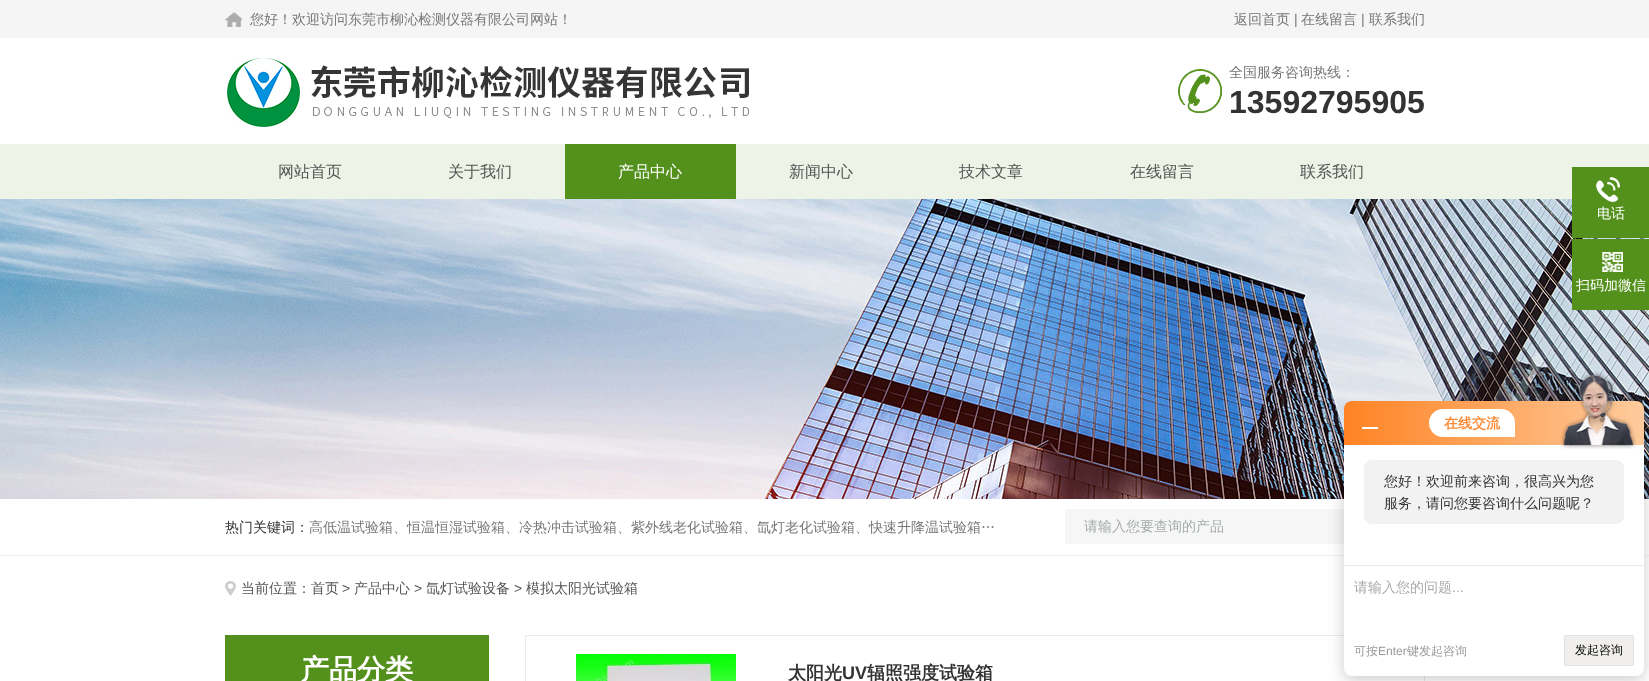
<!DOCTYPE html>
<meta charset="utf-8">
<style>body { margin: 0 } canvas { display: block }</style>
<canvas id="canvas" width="1649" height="681"></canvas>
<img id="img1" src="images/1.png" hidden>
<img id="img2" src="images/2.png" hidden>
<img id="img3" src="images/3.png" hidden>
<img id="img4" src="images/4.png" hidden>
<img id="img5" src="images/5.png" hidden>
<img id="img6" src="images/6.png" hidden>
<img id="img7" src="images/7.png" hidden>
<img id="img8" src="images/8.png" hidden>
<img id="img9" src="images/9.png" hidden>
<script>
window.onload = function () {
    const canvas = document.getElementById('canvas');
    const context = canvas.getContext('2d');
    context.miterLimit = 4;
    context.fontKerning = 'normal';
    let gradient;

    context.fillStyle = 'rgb(255, 255, 255)';
    context.fillRect(0, 0, 1649, 681);
    context.fillStyle = 'rgb(245, 245, 245)';
    context.fillRect(0, 0, 1649, 38);
    context.drawImage(document.getElementById('img1'), 225, 12, 17, 15);
    context.drawImage(document.getElementById('img2'), 227, 58, 523, 69);
    context.drawImage(document.getElementById('img3'), 1178, 69, 44, 44);
    context.fillStyle = 'rgb(237, 244, 231)';
    context.fillRect(0, 144, 1649, 55);
    context.fillStyle = 'rgb(84, 145, 28)';
    context.fillRect(565, 144, 171, 55);
    context.drawImage(document.getElementById('img4'), 0, 199, 1649, 300);
    context.fillRect(1572, 167, 77, 71);
    context.drawImage(document.getElementById('img5'), 1596, 177, 24, 25);
    context.fillRect(1572, 239, 77, 71);
    context.drawImage(document.getElementById('img6'), 1602, 252, 21, 20);
    context.fillStyle = 'rgb(241, 241, 241)';
    context.fillRect(0, 555, 1649, 1);
    context.fillStyle = 'rgb(246, 246, 246)';
    context.fillRect(1065, 509, 279, 35);
    context.strokeStyle = 'rgb(234, 234, 234)';
    context.strokeRect(525.5, 635.5, 899, 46);
    context.fillStyle = 'rgba(0, 0, 0, 0.2)';
    context.filter = 'blur(8px)';
    context.beginPath();
    context.roundRect(1344, 449, 300, 231, 8);
    context.fill();
    context.filter = 'none';
    gradient = context.createLinearGradient(1344, 423, 1644, 423);
    gradient.addColorStop(0, 'rgb(255, 131, 36)');
    gradient.addColorStop(1, 'rgb(254, 203, 156)');
    context.fillStyle = gradient;
    context.beginPath();
    context.roundRect(1344, 401, 300, 44, [8, 8, 0, 0]);
    context.fill();
    context.fillStyle = 'rgb(255, 255, 255)';
    context.fillRect(1362, 427, 16, 2);
    context.beginPath();
    context.roundRect(1429, 409, 86, 28, [14, 14, 0, 14]);
    context.fill();
    context.beginPath();
    context.roundRect(1344, 445, 300, 231, [0, 0, 8, 8]);
    context.fill();
    context.drawImage(document.getElementById('img7'), 1560, 371, 76, 78);
    context.fillStyle = 'rgb(242, 242, 242)';
    context.beginPath();
    context.roundRect(1364, 460, 260, 64, 8);
    context.fill();
    context.fillStyle = 'rgb(234, 234, 234)';
    context.fillRect(1344, 565, 300, 1);
    context.fillStyle = 'rgb(240, 239, 237)';
    context.beginPath();
    context.roundRect(1564.5, 635.5, 69, 30, 1.5);
    context.fill();
    context.strokeStyle = 'rgb(226, 226, 226)';
    context.stroke();
    context.drawImage(document.getElementById('img8'), 225, 581, 11, 15);
    context.fillStyle = 'rgb(84, 145, 28)';
    context.fillRect(225, 635, 264, 46);
    context.drawImage(document.getElementById('img9'), 576, 654, 160, 27);
    context.font = '500 14px WenQuanYi Zen Hei';
    context.fillStyle = 'rgb(119, 119, 119)';
    context.fillText('您好！欢迎访问东莞市柳沁检测仪器有限公司网站！', 250, 24);
    context.fillText('返回首页', 1234, 24);
    context.font = '14px Liberation Sans';
    context.fillText('|', 1294, 24);
    context.font = '500 14px WenQuanYi Zen Hei';
    context.fillText('在线留言', 1301, 24);
    context.font = '14px Liberation Sans';
    context.fillText('|', 1361, 24);
    context.font = '500 14px WenQuanYi Zen Hei';
    context.fillText('联系我们', 1369, 24);
    context.fillText('全国服务咨询热线：', 1229, 77);
    context.font = 'bold 32px Liberation Sans';
    context.fillStyle = 'rgb(51, 51, 51)';
    context.fillText('13592795905', 1229, 113);
    context.font = '500 16px WenQuanYi Zen Hei';
    context.fillStyle = 'rgb(85, 85, 85)';
    context.fillText('网站首页', 278, 177);
    context.fillText('关于我们', 448, 177);
    context.fillStyle = 'rgb(255, 255, 255)';
    context.fillText('产品中心', 618, 177);
    context.fillStyle = 'rgb(85, 85, 85)';
    context.fillText('新闻中心', 789, 177);
    context.fillText('技术文章', 959, 177);
    context.fillText('在线留言', 1130, 177);
    context.fillText('联系我们', 1300, 177);
    context.font = '500 14px WenQuanYi Zen Hei';
    context.fillStyle = 'rgb(255, 255, 255)';
    context.fillText('电话', 1597, 218);
    context.fillText('扫码加微信', 1576, 290);
    context.fillStyle = 'rgb(51, 51, 51)';
    context.fillText('热门关键词：', 225, 532);
    context.fillStyle = 'rgb(119, 119, 119)';
    context.fillText('高低温试验箱、恒温恒湿试验箱、冷热冲击试验箱、紫外线老化试验箱、氙灯老化试验箱、快速升降温试验箱…', 309, 532);
    context.fillStyle = 'rgb(164, 173, 169)';
    context.fillText('请输入您要查询的产品', 1084, 531);
    context.font = 'bold 14px WenQuanYi Zen Hei';
    context.fillStyle = 'rgb(251, 139, 54)';
    context.fillText('在线交流', 1444, 428);
    context.font = '500 14px WenQuanYi Zen Hei';
    context.fillStyle = 'rgb(51, 51, 51)';
    context.fillText('您好！欢迎前来咨询，很高兴为您', 1384, 486);
    context.fillText('服务，请问您要咨询什么问题呢？', 1384, 508);
    context.fillStyle = 'rgb(170, 170, 170)';
    context.fillText('请输入您的问题', 1354, 592);
    context.font = '14px Liberation Sans';
    context.fillText('...', 1452, 592);
    context.font = '500 12px WenQuanYi Zen Hei';
    context.fillStyle = 'rgb(153, 153, 153)';
    context.fillText('可按', 1354, 655);
    context.font = '12px Liberation Sans';
    context.fillText('Enter', 1378, 655);
    context.font = '500 12px WenQuanYi Zen Hei';
    context.fillText('键发起咨询', 1407, 655);
    context.fillStyle = 'rgb(0, 0, 0)';
    context.fillText('发起咨询', 1575, 654);
    context.font = '500 14px WenQuanYi Zen Hei';
    context.fillStyle = 'rgb(85, 85, 85)';
    context.fillText('当前位置：首页', 241, 593);
    context.font = '14px Liberation Sans';
    context.fillText('>', 342, 593);
    context.font = '500 14px WenQuanYi Zen Hei';
    context.fillText('产品中心', 354, 593);
    context.font = '14px Liberation Sans';
    context.fillText('>', 414, 593);
    context.font = '500 14px WenQuanYi Zen Hei';
    context.fillText('氙灯试验设备', 426, 593);
    context.font = '14px Liberation Sans';
    context.fillText('>', 514, 593);
    context.font = '500 14px WenQuanYi Zen Hei';
    context.fillText('模拟太阳光试验箱', 526, 593);
    context.font = 'bold 28px WenQuanYi Zen Hei';
    context.fillStyle = 'rgb(255, 255, 255)';
    context.fillText('产品分类', 301, 679);
    context.font = 'bold 18px WenQuanYi Zen Hei';
    context.fillStyle = 'rgb(51, 51, 51)';
    context.fillText('太阳光', 788, 679);
    context.font = 'bold 18px Liberation Sans';
    context.fillText('UV', 842, 679);
    context.font = 'bold 18px WenQuanYi Zen Hei';
    context.fillText('辐照强度试验箱', 867, 679);
};
</script>
